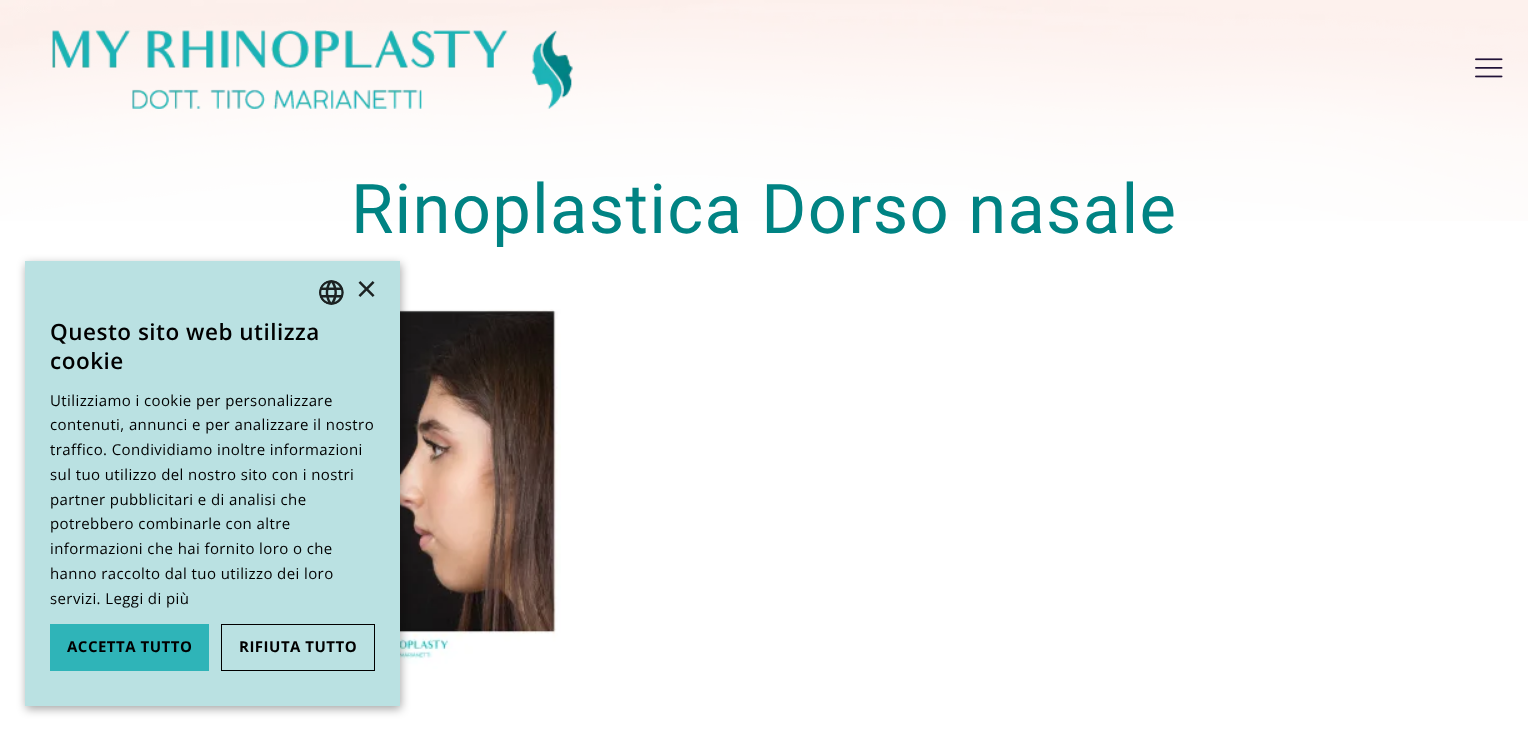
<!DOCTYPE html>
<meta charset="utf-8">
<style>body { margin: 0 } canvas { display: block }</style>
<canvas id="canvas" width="1528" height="731"></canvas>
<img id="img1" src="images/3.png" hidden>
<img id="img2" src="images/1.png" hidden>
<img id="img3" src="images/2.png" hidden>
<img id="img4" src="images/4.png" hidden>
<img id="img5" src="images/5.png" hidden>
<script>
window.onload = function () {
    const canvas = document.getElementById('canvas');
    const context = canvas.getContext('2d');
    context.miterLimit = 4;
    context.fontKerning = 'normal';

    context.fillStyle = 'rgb(255, 255, 255)';
    context.fillRect(0, 0, 1528, 731);
    context.drawImage(document.getElementById('img1'), 0, 0, 1528, 221);
    context.drawImage(document.getElementById('img2'), 52, 30, 521, 79);
    context.drawImage(document.getElementById('img3'), 1475, 58, 28, 20);
    context.drawImage(document.getElementById('img4'), 400, 309, 161, 360);
    context.fillStyle = 'rgba(0, 0, 0, 0.35)';
    context.filter = 'blur(5px)';
    context.beginPath();
    context.rect(26, 264, 375, 445);
    context.fill();
    context.filter = 'none';
    context.fillStyle = 'rgb(186, 225, 226)';
    context.fillRect(25, 261, 375, 445);
    context.drawImage(document.getElementById('img5'), 319, 280, 25, 25);
    context.fillStyle = 'rgb(47, 180, 184)';
    context.fillRect(50, 624, 159, 47);
    context.strokeStyle = 'rgb(0, 0, 0)';
    context.strokeRect(221.5, 624.5, 153, 46);
    context.letterSpacing = '1.25px';
    context.font = '68.75px Roboto';
    context.fillStyle = 'rgb(0, 131, 131)';
    context.fillText('Rinoplastica Dorso nasale', 351, 233);
    context.letterSpacing = '0px';
    context.font = '36px Liberation Sans';
    context.fillStyle = 'rgb(28, 34, 34)';
    context.fillText('×', 356, 301);
    context.letterSpacing = '0.5px';
    context.font = '600 22.5px Open Sans';
    context.fillStyle = 'rgb(0, 0, 0)';
    context.fillText('Questo sito web utilizza', 50, 340);
    context.fillText('cookie', 50, 369);
    context.letterSpacing = '0.4px';
    context.font = '15px Open Sans';
    context.fillText('Utilizziamo i cookie per personalizzare', 50, 406);
    context.fillText('contenuti, annunci e per analizzare il nostro', 50, 430);
    context.fillText('traffico. Condividiamo inoltre informazioni', 50, 455);
    context.fillText('sul tuo utilizzo del nostro sito con i nostri', 50, 480);
    context.fillText('partner pubblicitari e di analisi che', 50, 505);
    context.fillText('potrebbero combinarle con altre', 50, 529);
    context.fillText('informazioni che hai fornito loro o che', 50, 554);
    context.fillText('hanno raccolto dal tuo utilizzo dei loro', 50, 579);
    context.fillText('servizi. Leggi di più', 50, 604);
    context.letterSpacing = '0.5px';
    context.font = 'bold 15px Open Sans';
    context.fillText('ACCETTA TUTTO', 67, 652);
    context.fillText('RIFIUTA TUTTO', 239, 652);
};
</script>
